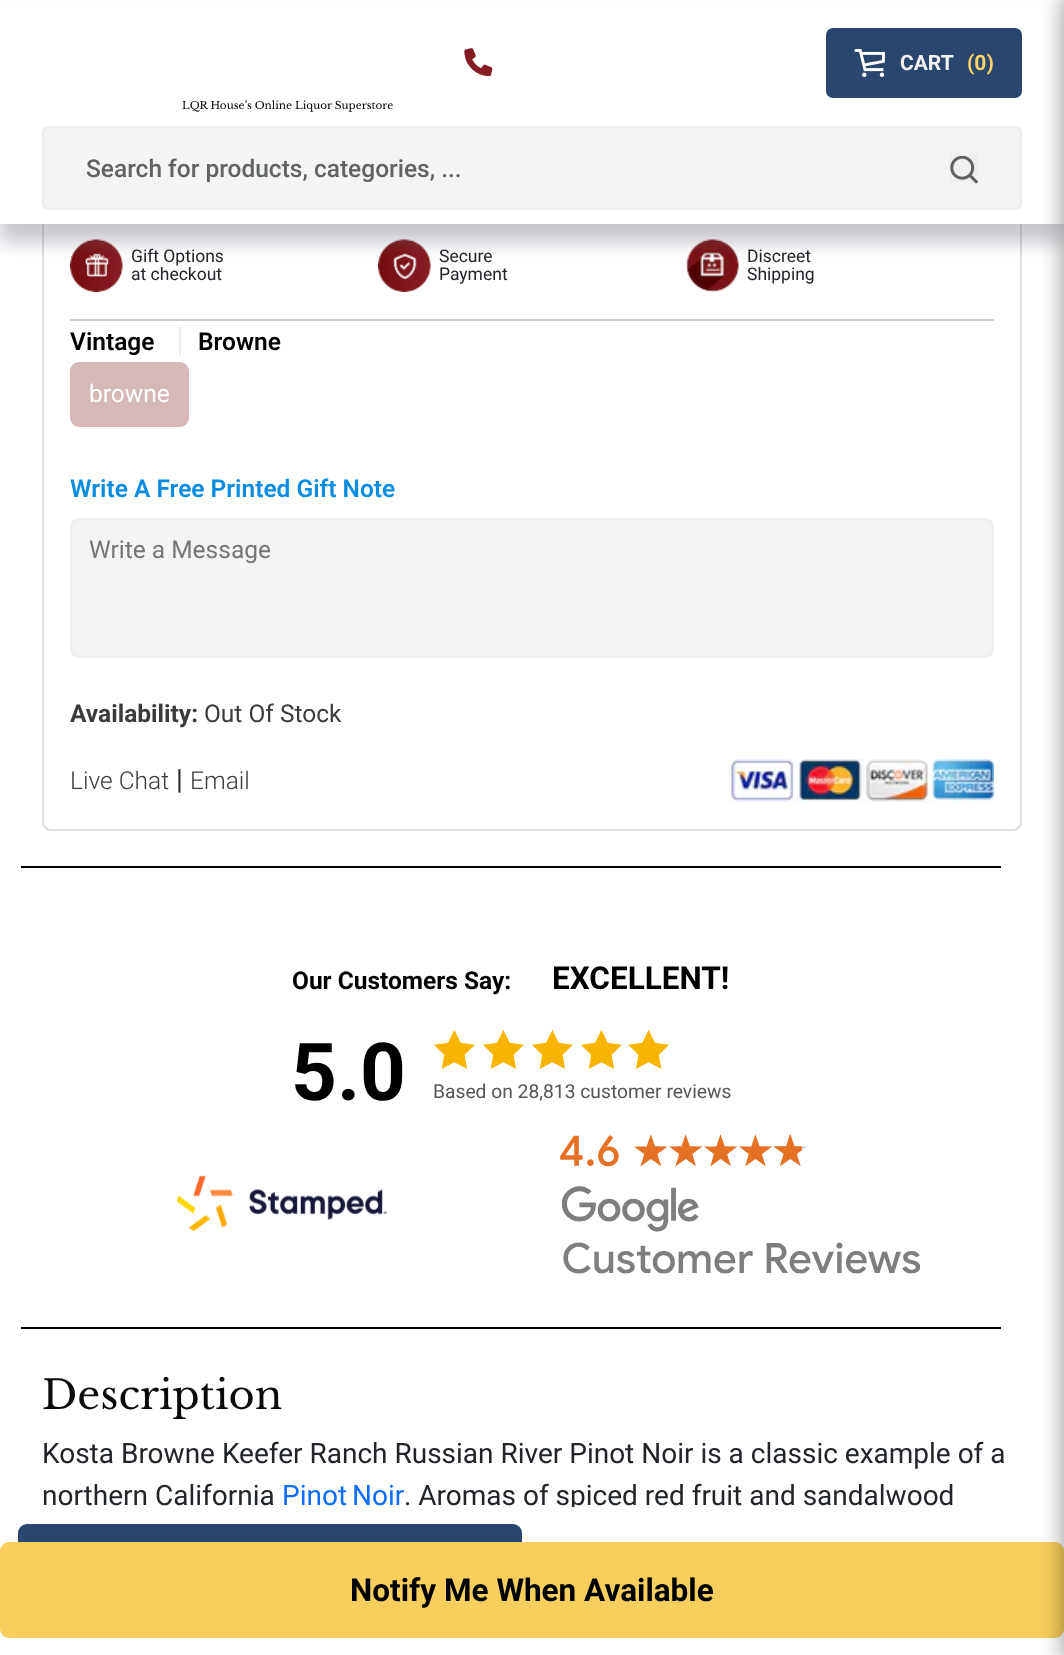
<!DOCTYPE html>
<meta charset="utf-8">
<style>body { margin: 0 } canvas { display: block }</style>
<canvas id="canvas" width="1064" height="1655"></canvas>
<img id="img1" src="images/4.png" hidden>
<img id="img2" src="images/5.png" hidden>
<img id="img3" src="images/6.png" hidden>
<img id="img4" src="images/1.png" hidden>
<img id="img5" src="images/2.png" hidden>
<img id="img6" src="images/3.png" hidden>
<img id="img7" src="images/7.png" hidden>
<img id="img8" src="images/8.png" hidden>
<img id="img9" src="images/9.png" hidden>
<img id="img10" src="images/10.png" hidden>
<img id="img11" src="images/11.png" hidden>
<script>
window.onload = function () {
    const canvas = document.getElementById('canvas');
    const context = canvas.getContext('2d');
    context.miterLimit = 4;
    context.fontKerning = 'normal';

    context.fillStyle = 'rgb(255, 255, 255)';
    context.fillRect(0, 0, 1064, 1655);
    context.beginPath();
    context.roundRect(43, 204, 978, 626, 8);
    context.strokeStyle = 'rgb(222, 222, 222)';
    context.lineWidth = 2;
    context.stroke();
    context.drawImage(document.getElementById('img1'), 70, 239, 53, 53);
    context.drawImage(document.getElementById('img2'), 378, 239, 53, 53);
    context.drawImage(document.getElementById('img3'), 686, 239, 53, 53);
    context.fillStyle = 'rgba(106, 100, 122, 0.2)';
    context.filter = 'blur(9px)';
    context.beginPath();
    context.rect(0, 18, 1064, 224);
    context.fill();
    context.filter = 'none';
    context.fillStyle = 'rgb(255, 255, 255)';
    context.fillRect(0, 6, 1064, 218);
    context.fillStyle = 'rgb(40, 70, 110)';
    context.beginPath();
    context.roundRect(826, 28, 196, 70, 7);
    context.fill();
    context.drawImage(document.getElementById('img4'), 854, 49, 31, 28);
    context.drawImage(document.getElementById('img5'), 464, 48, 29, 29);
    context.save();
    context.beginPath();
    context.rect(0, 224, 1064, 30);
    context.clip();
    context.fillStyle = 'rgba(106, 100, 122, 0.2)';
    context.filter = 'blur(9px)';
    context.beginPath();
    context.rect(0, 144, 1064, 98);
    context.fill();
    context.filter = 'none';
    context.restore();
    context.fillStyle = 'rgb(242, 244, 246)';
    context.beginPath();
    context.roundRect(43, 127, 978, 82, 6);
    context.fill();
    context.strokeStyle = 'rgb(236, 237, 239)';
    context.stroke();
    context.fillStyle = 'rgb(239, 239, 239)';
    context.fillRect(950, 154, 28, 28);
    context.drawImage(document.getElementById('img6'), 950, 156, 28, 28);
    context.fillStyle = 'rgb(40, 70, 110)';
    context.beginPath();
    context.roundRect(18, 1524, 504, 97, 9);
    context.fill();
    context.fillStyle = 'rgb(248, 207, 92)';
    context.beginPath();
    context.roundRect(0, 1542, 1064, 96, 9);
    context.fill();
    context.fillStyle = 'rgba(0, 0, 0, 0.35)';
    context.filter = 'blur(10.5px)';
    context.beginPath();
    context.rect(1061, -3, 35, 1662);
    context.fill();
    context.filter = 'none';
    context.fillStyle = 'rgb(204, 204, 204)';
    context.fillRect(70, 319, 924, 2);
    context.fillStyle = 'rgb(236, 236, 236)';
    context.fillRect(179, 327, 2, 28);
    context.fillStyle = 'rgb(215, 184, 184)';
    context.beginPath();
    context.roundRect(71, 363, 117, 63, 8);
    context.fill();
    context.strokeStyle = 'rgb(215, 184, 184)';
    context.stroke();
    context.fillStyle = 'rgb(242, 244, 246)';
    context.beginPath();
    context.roundRect(71, 519, 922, 138, 8);
    context.fill();
    context.strokeStyle = 'rgb(236, 237, 239)';
    context.stroke();
    context.drawImage(document.getElementById('img7'), 731, 759, 263, 44);
    context.fillStyle = 'rgb(0, 0, 0)';
    context.fillRect(21, 866, 980, 2);
    context.fillRect(21, 1327, 980, 2);
    context.drawImage(document.getElementById('img8'), 434, 1030, 41, 39);
    context.drawImage(document.getElementById('img8'), 483, 1030, 41, 39);
    context.drawImage(document.getElementById('img8'), 532, 1030, 41, 39);
    context.drawImage(document.getElementById('img8'), 581, 1030, 41, 39);
    context.drawImage(document.getElementById('img9'), 628, 1030, 41, 39);
    context.drawImage(document.getElementById('img10'), 177, 1175, 210, 57);
    context.drawImage(document.getElementById('img11'), 560, 1134, 361, 140);
    context.font = 'bold 21px Roboto';
    context.fillStyle = 'rgb(242, 242, 242)';
    context.fillText('CART', 900, 70);
    context.fillStyle = 'rgb(250, 211, 105)';
    context.fillText('(0)', 967, 70);
    context.font = '10.5px Libre Baskerville';
    context.fillStyle = 'rgb(0, 0, 0)';
    context.fillText('LQR House’s Online Liquor Superstore', 182, 109);
    context.font = '500 24.5px Roboto';
    context.fillStyle = 'rgb(97, 98, 98)';
    context.fillText('Search for products, categories, ...', 86, 177);
    context.font = '17.5px Roboto';
    context.fillStyle = 'rgb(33, 37, 41)';
    context.fillText('Gift Options', 131, 262);
    context.fillText('at checkout', 131, 280);
    context.fillText('Secure', 439, 262);
    context.fillText('Payment', 439, 280);
    context.fillText('Discreet', 747, 262);
    context.fillText('Shipping', 747, 280);
    context.font = '600 24.5px Roboto';
    context.fillStyle = 'rgb(0, 0, 0)';
    context.fillText('Vintage', 70, 350);
    context.fillText('Browne', 198, 350);
    context.font = '24.5px Roboto';
    context.fillStyle = 'rgb(255, 255, 255)';
    context.fillText('browne', 89, 402);
    context.font = '600 24.5px Roboto';
    context.fillStyle = 'rgb(10, 140, 225)';
    context.fillText('Write A Free Printed Gift Note', 70, 497);
    context.font = '24.5px Roboto';
    context.fillStyle = 'rgb(117, 117, 117)';
    context.fillText('Write a Message', 89, 558);
    context.font = 'bold 24.5px Roboto';
    context.fillStyle = 'rgb(59, 59, 59)';
    context.fillText('Availability:', 70, 722);
    context.font = '24.5px Roboto';
    context.fillText('Out Of Stock', 204, 722);
    context.font = 'bold 31.5px Roboto';
    context.fillStyle = 'rgb(0, 0, 0)';
    context.fillText('Notify Me When Available', 350, 1601);
    context.font = '300 24.5px Roboto';
    context.fillStyle = 'rgb(59, 59, 59)';
    context.fillText('Live Chat', 70, 789);
    context.font = '28px Roboto';
    context.fillStyle = 'rgb(33, 37, 41)';
    context.fillText('|', 176, 789);
    context.font = '300 24.5px Roboto';
    context.fillStyle = 'rgb(59, 59, 59)';
    context.fillText('Email', 190, 789);
    context.font = 'bold 24.5px Roboto';
    context.fillStyle = 'rgb(0, 0, 0)';
    context.fillText('Our Customers Say:', 292, 989);
    context.font = 'bold 31.5px Roboto';
    context.fillText('EXCELLENT!', 552, 989);
    context.font = 'bold 80px Roboto';
    context.fillText('5.0', 291, 1100);
    context.font = '19.25px Roboto';
    context.fillStyle = 'rgb(86, 86, 86)';
    context.fillText('Based on 28,813 customer reviews', 433, 1098);
    context.font = '40px Libre Baskerville';
    context.fillStyle = 'rgb(10, 10, 10)';
    context.fillText('Description', 42, 1409);
    context.font = '28px Roboto';
    context.fillStyle = 'rgb(33, 37, 41)';
    context.fillText('Kosta Browne Keefer Ranch Russian River Pinot Noir is a classic example of a', 42, 1463);
    context.fillText('northern California', 42, 1505);
    context.wordSpacing = '-2px';
    context.fillStyle = 'rgb(13, 110, 253)';
    context.fillText('Pinot Noir', 282, 1505);
    context.wordSpacing = '0px';
    context.fillStyle = 'rgb(33, 37, 41)';
    context.fillText('. Aromas of spiced red fruit and sandalwood', 404, 1505);
    context.fillStyle = 'rgb(255, 255, 255)';
    context.fillRect(572, 1507, 3, 4);
};
</script>
